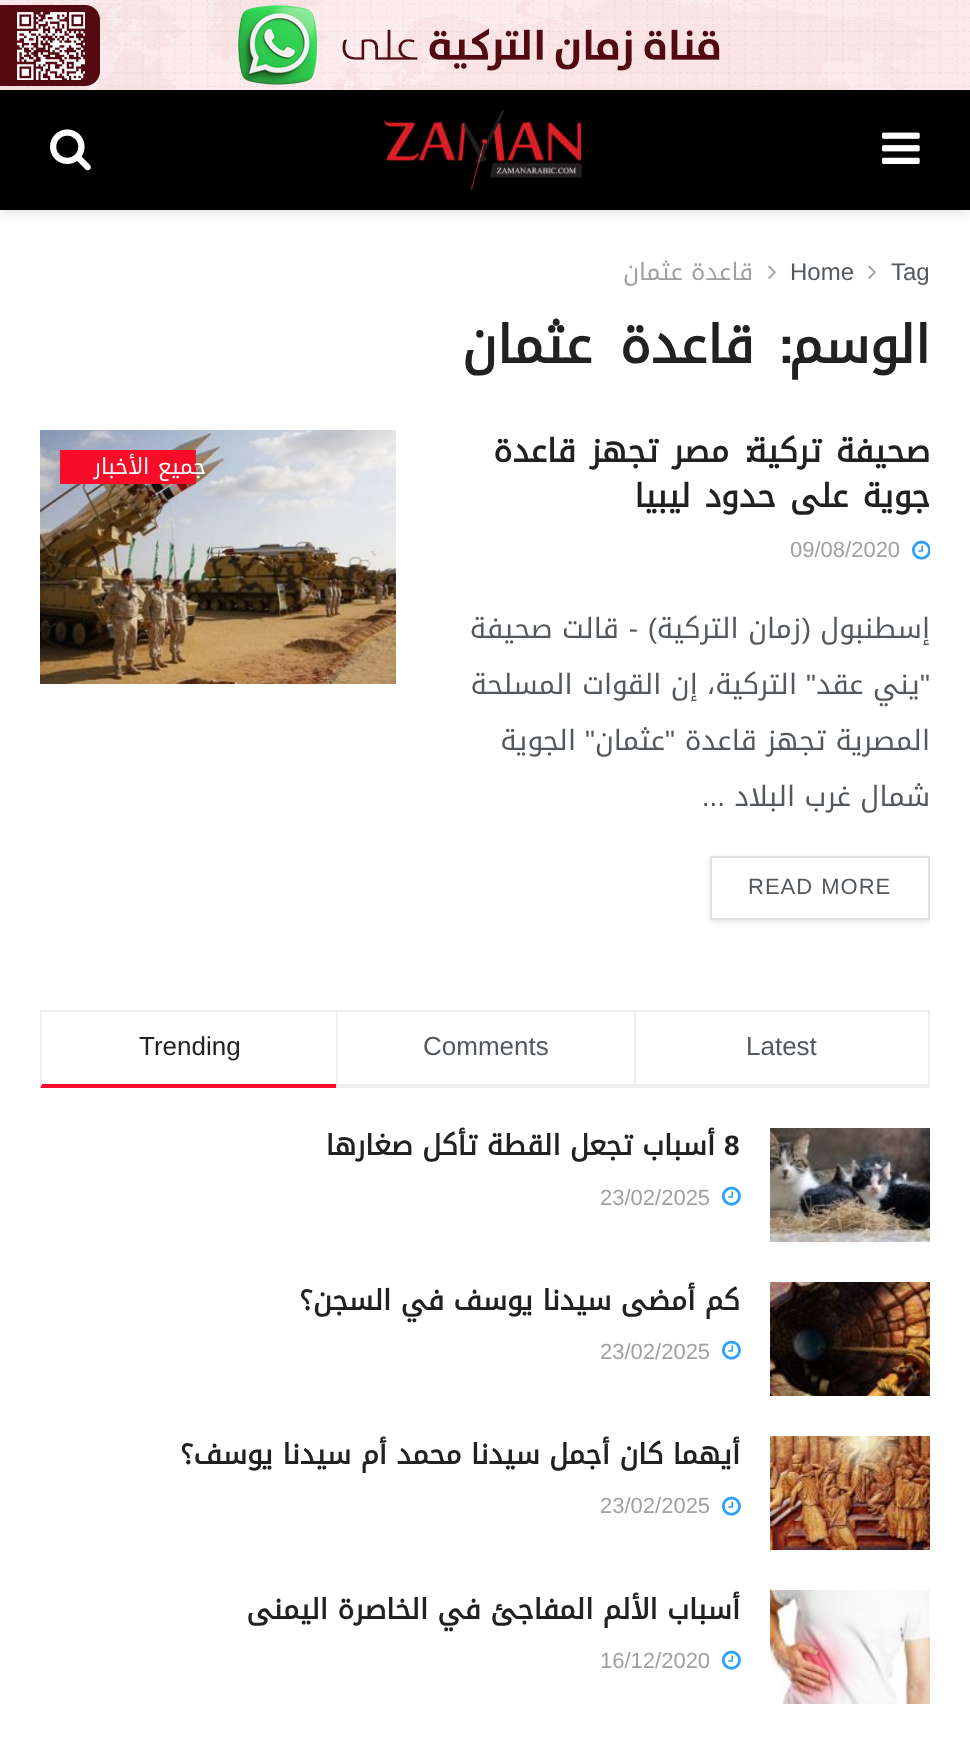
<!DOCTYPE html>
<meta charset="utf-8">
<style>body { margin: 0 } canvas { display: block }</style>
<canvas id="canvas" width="970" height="1758"></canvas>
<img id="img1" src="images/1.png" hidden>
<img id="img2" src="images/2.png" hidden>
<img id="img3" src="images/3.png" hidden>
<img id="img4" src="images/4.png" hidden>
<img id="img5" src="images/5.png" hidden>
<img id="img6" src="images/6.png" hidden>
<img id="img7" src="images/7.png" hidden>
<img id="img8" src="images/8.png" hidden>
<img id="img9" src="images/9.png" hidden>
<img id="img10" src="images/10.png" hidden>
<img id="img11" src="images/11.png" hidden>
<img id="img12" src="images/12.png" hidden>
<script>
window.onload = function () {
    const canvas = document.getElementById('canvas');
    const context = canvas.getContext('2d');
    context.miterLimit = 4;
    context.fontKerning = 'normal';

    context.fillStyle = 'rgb(255, 255, 255)';
    context.fillRect(0, 0, 970, 1758);
    context.fillStyle = 'rgba(0, 0, 0, 0.1)';
    context.filter = 'blur(6px)';
    context.beginPath();
    context.rect(0, 94, 970, 120);
    context.fill();
    context.filter = 'none';
    context.drawImage(document.getElementById('img1'), 0, 0, 970, 90);
    context.fillStyle = 'rgb(0, 0, 0)';
    context.fillRect(0, 90, 970, 120);
    context.drawImage(document.getElementById('img2'), 882, 132, 38, 32);
    context.drawImage(document.getElementById('img3'), 384, 110, 198, 80);
    context.drawImage(document.getElementById('img4'), 50, 129, 41, 42);
    context.drawImage(document.getElementById('img5'), 868, 265, 8, 14);
    context.drawImage(document.getElementById('img5'), 768, 265, 8, 14);
    context.drawImage(document.getElementById('img6'), 912, 540, 18, 20);
    context.save();
    context.beginPath();
    context.rect(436, 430, 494, 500);
    context.clip();
    context.beginPath();
    context.moveTo(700, 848);
    context.lineTo(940, 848);
    context.lineTo(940, 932);
    context.lineTo(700, 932);
    context.closePath();
    context.moveTo(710, 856);
    context.lineTo(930, 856);
    context.lineTo(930, 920);
    context.lineTo(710, 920);
    context.closePath();
    context.clip('evenodd');
    context.fillStyle = 'rgba(0, 0, 0, 0.1)';
    context.filter = 'blur(3px)';
    context.beginPath();
    context.rect(710, 858, 220, 64);
    context.fill();
    context.filter = 'none';
    context.restore();
    context.strokeStyle = 'rgb(224, 224, 224)';
    context.lineWidth = 2;
    context.strokeRect(711, 857, 218, 62);
    context.drawImage(document.getElementById('img7'), 40, 430, 356, 254);
    context.fillStyle = 'rgb(247, 13, 40)';
    context.fillRect(60, 450, 136, 34);
    context.fillStyle = 'rgb(238, 238, 238)';
    context.fillRect(40, 1010, 890, 2);
    context.fillRect(928, 1010, 2, 78);
    context.fillRect(634, 1084, 296, 4);
    context.fillRect(634, 1010, 2, 78);
    context.fillRect(336, 1084, 298, 4);
    context.fillRect(336, 1010, 2, 78);
    context.fillStyle = 'rgb(247, 13, 40)';
    context.beginPath();
    context.moveTo(336, 1088);
    context.lineTo(40, 1088);
    context.lineTo(42, 1084);
    context.lineTo(336, 1084);
    context.closePath();
    context.fill();
    context.fillStyle = 'rgb(238, 238, 238)';
    context.beginPath();
    context.moveTo(40, 1088);
    context.lineTo(40, 1010);
    context.lineTo(42, 1012);
    context.lineTo(42, 1084);
    context.closePath();
    context.fill();
    context.drawImage(document.getElementById('img8'), 770, 1128, 160, 114);
    context.drawImage(document.getElementById('img9'), 722, 1186, 19, 20);
    context.drawImage(document.getElementById('img10'), 770, 1282, 160, 114);
    context.drawImage(document.getElementById('img9'), 722, 1340, 19, 20);
    context.drawImage(document.getElementById('img11'), 770, 1436, 160, 114);
    context.drawImage(document.getElementById('img9'), 722, 1496, 19, 20);
    context.drawImage(document.getElementById('img12'), 770, 1590, 160, 114);
    context.drawImage(document.getElementById('img9'), 722, 1650, 19, 20);
    context.font = '24px Liberation Sans';
    context.fillStyle = 'rgb(83, 88, 92)';
    context.fillText('Tag', 891, 280);
    context.fillText('Home', 790, 280);
    context.direction = 'rtl';
    context.font = '24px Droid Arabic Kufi';
    context.fillStyle = 'rgb(160, 160, 160)';
    context.fillText('قاعدة عثمان', 753, 280);
    context.letterSpacing = '-1px';
    context.font = 'bold 52px Droid Arabic Kufi';
    context.fillStyle = 'rgb(33, 33, 33)';
    context.fillText('الوسم', 930, 363);
    context.font = 'bold 52px Liberation Sans';
    context.fillText(':', 794, 363);
    context.wordSpacing = '11px';
    context.font = 'bold 52px Droid Arabic Kufi';
    context.fillText('قاعدة عثمان', 754, 363);
    context.letterSpacing = '-0.6px';
    context.wordSpacing = '4px';
    context.font = 'bold 32px Droid Arabic Kufi';
    context.fillText('صحيفة تركية', 930, 462);
    context.wordSpacing = '0px';
    context.font = 'bold 32px Liberation Sans';
    context.fillText(':', 754, 462);
    context.wordSpacing = '4px';
    context.font = 'bold 32px Droid Arabic Kufi';
    context.fillText('مصر تجهز قاعدة', 729, 462);
    context.fillText('جوية على حدود ليبيا', 930, 507);
    context.letterSpacing = '0px';
    context.wordSpacing = '0px';
    context.direction = 'ltr';
    context.font = '22px Liberation Sans';
    context.fillStyle = 'rgb(160, 160, 160)';
    context.fillText('09/08/2020', 790, 557);
    context.direction = 'rtl';
    context.font = '28px Droid Arabic Kufi';
    context.fillStyle = 'rgb(83, 88, 92)';
    context.fillText('إسطنبول', 930, 638);
    context.font = '28px Liberation Sans';
    context.fillText('(', 811, 638);
    context.font = '28px Droid Arabic Kufi';
    context.fillText('زمان التركية', 801, 638);
    context.font = '28px Liberation Sans';
    context.fillText(')', 657, 638);
    context.fillText('-', 638, 638);
    context.font = '28px Droid Arabic Kufi';
    context.fillText('قالت صحيفة', 619, 638);
    context.font = '28px Liberation Sans';
    context.fillText('"', 930, 694);
    context.font = '28px Droid Arabic Kufi';
    context.fillText('يني عقد', 920, 694);
    context.font = '28px Liberation Sans';
    context.fillText('"', 816, 694);
    context.font = '28px Droid Arabic Kufi';
    context.fillText('التركية، إن القوات المسلحة', 797, 694);
    context.fillText('المصرية تجهز قاعدة', 930, 750);
    context.font = '28px Liberation Sans';
    context.fillText('"', 675, 750);
    context.font = '28px Droid Arabic Kufi';
    context.fillText('عثمان', 665, 750);
    context.font = '28px Liberation Sans';
    context.fillText('"', 595, 750);
    context.font = '28px Droid Arabic Kufi';
    context.fillText('الجوية', 576, 750);
    context.fillText('شمال غرب البلاد', 930, 806);
    context.font = '28px Liberation Sans';
    context.fillText('...', 725, 806);
    context.letterSpacing = '1px';
    context.wordSpacing = '1px';
    context.direction = 'ltr';
    context.font = '22px Liberation Sans';
    context.fillText('READ MORE', 748, 894);
    context.letterSpacing = '2px';
    context.wordSpacing = '-1px';
    context.direction = 'rtl';
    context.font = '22px Droid Arabic Kufi';
    context.fillStyle = 'rgb(255, 255, 255)';
    context.fillText('جميع الأخبار', 206, 474);
    context.letterSpacing = '0px';
    context.wordSpacing = '0px';
    context.direction = 'ltr';
    context.font = '26px Liberation Sans';
    context.fillStyle = 'rgb(83, 88, 92)';
    context.fillText('Latest', 746, 1055);
    context.fillText('Comments', 423, 1055);
    context.fillStyle = 'rgb(33, 33, 33)';
    context.fillText('Trending', 139, 1055);
    context.font = 'bold 28px Liberation Sans';
    context.fillText('8', 724, 1155);
    context.direction = 'rtl';
    context.font = 'bold 28px Droid Arabic Kufi';
    context.fillText('أسباب تجعل القطة تأكل صغارها', 715, 1155);
    context.direction = 'ltr';
    context.font = '22px Liberation Sans';
    context.fillStyle = 'rgb(160, 160, 160)';
    context.fillText('23/02/2025', 600, 1205);
    context.direction = 'rtl';
    context.font = 'bold 28px Droid Arabic Kufi';
    context.fillStyle = 'rgb(33, 33, 33)';
    context.fillText('كم أمضى سيدنا يوسف في السجن؟', 740, 1310);
    context.direction = 'ltr';
    context.font = '22px Liberation Sans';
    context.fillStyle = 'rgb(160, 160, 160)';
    context.fillText('23/02/2025', 600, 1359);
    context.direction = 'rtl';
    context.font = 'bold 28px Droid Arabic Kufi';
    context.fillStyle = 'rgb(33, 33, 33)';
    context.fillText('أيهما كان أجمل سيدنا محمد أم سيدنا يوسف؟', 740, 1464);
    context.direction = 'ltr';
    context.font = '22px Liberation Sans';
    context.fillStyle = 'rgb(160, 160, 160)';
    context.fillText('23/02/2025', 600, 1513);
    context.direction = 'rtl';
    context.font = 'bold 28px Droid Arabic Kufi';
    context.fillStyle = 'rgb(33, 33, 33)';
    context.fillText('أسباب الألم المفاجئ في الخاصرة اليمنى', 740, 1619);
    context.direction = 'ltr';
    context.font = '22px Liberation Sans';
    context.fillStyle = 'rgb(160, 160, 160)';
    context.fillText('16/12/2020', 600, 1668);
};
</script>
